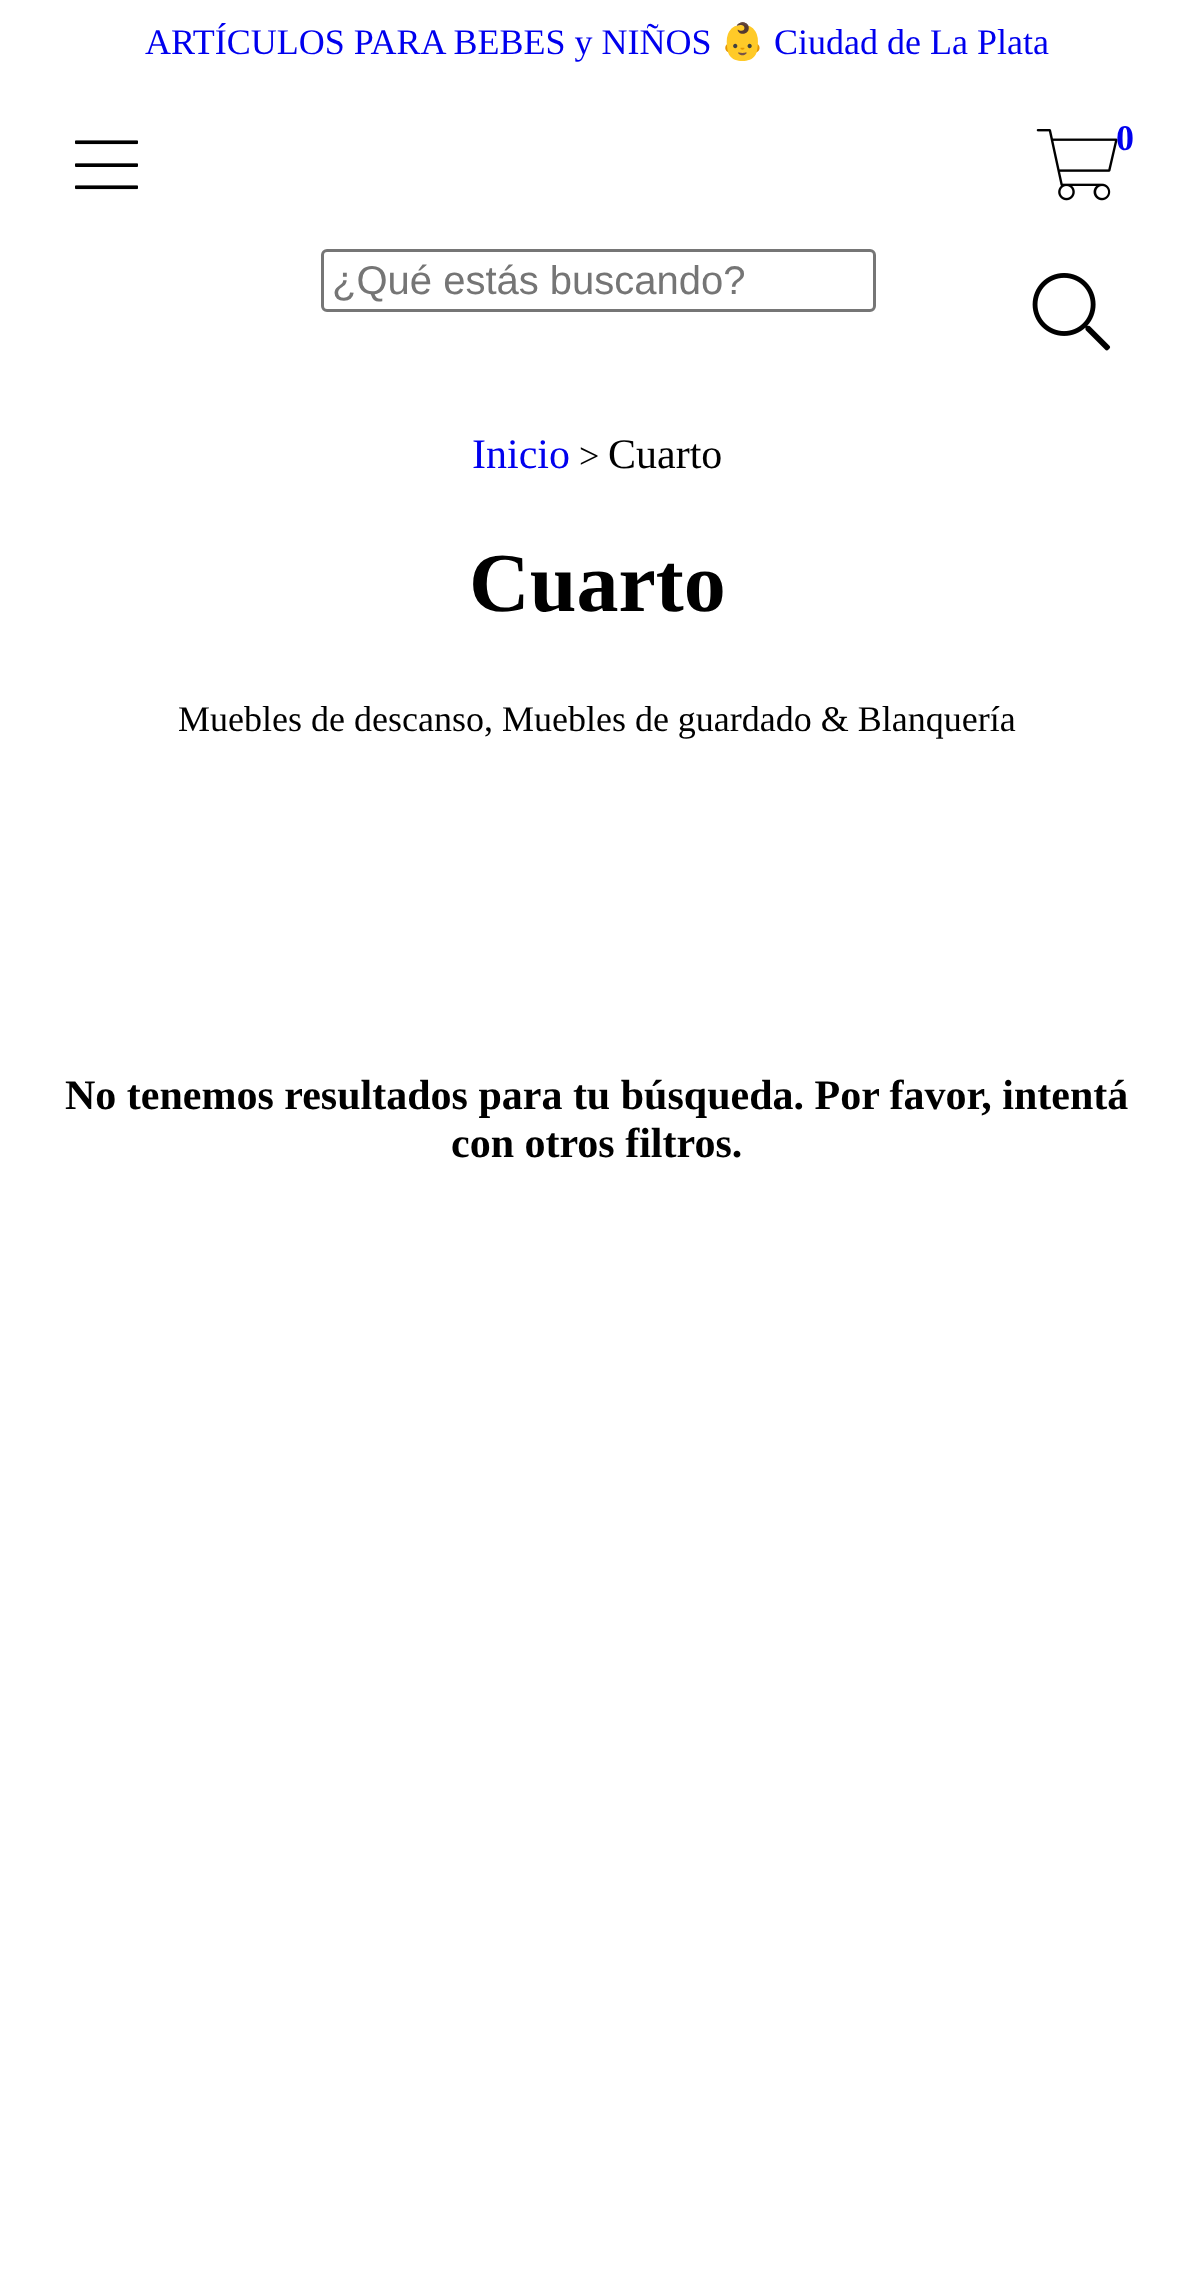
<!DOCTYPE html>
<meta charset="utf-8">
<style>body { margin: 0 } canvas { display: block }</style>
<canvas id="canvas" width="1193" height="2296"></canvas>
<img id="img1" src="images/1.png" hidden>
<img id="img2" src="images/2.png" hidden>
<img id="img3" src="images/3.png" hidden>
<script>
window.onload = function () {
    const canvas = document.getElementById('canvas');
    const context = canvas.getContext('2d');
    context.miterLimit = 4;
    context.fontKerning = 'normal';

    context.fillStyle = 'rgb(255, 255, 255)';
    context.fillRect(0, 0, 1193, 2296);
    context.drawImage(document.getElementById('img1'), 75, 140, 63, 50);
    context.drawImage(document.getElementById('img2'), 1036, 129, 82, 72);
    context.beginPath();
    context.roundRect(322.5, 250.5, 552, 60, 4.5);
    context.strokeStyle = 'rgb(118, 118, 118)';
    context.lineWidth = 3;
    context.stroke();
    context.drawImage(document.getElementById('img3'), 1032, 273, 79, 78);
    context.font = '36px Liberation Serif';
    context.fillStyle = 'rgb(0, 0, 238)';
    context.fillText('ARTÍCULOS PARA BEBES y NIÑOS', 145, 54);
    context.font = '36px Noto Color Emoji';
    context.fillText('👶', 720, 54);
    context.font = '36px Liberation Serif';
    context.fillText('Ciudad de La Plata', 774, 54);
    context.font = 'bold 36px Liberation Serif';
    context.fillText('0', 1116, 150);
    context.font = '40px Liberation Sans';
    context.fillStyle = 'rgb(117, 117, 117)';
    context.fillText('¿Qué estás buscando?', 332, 294);
    context.font = '42px Liberation Serif';
    context.fillStyle = 'rgb(0, 0, 238)';
    context.fillText('Inicio', 472, 468);
    context.font = '36px Liberation Serif';
    context.fillStyle = 'rgb(0, 0, 0)';
    context.fillText('>', 579, 468);
    context.font = '42px Liberation Serif';
    context.fillText('Cuarto', 608, 468);
    context.font = 'bold 84px Liberation Serif';
    context.fillText('Cuarto', 469, 611);
    context.font = '36px Liberation Serif';
    context.fillText('Muebles de descanso, Muebles de guardado & Blanquería', 178, 731);
    context.font = 'bold 42px Liberation Serif';
    context.fillText('No tenemos resultados para tu búsqueda. Por favor, intentá', 65, 1109);
    context.fillText('con otros filtros.', 451, 1157);
};
</script>
